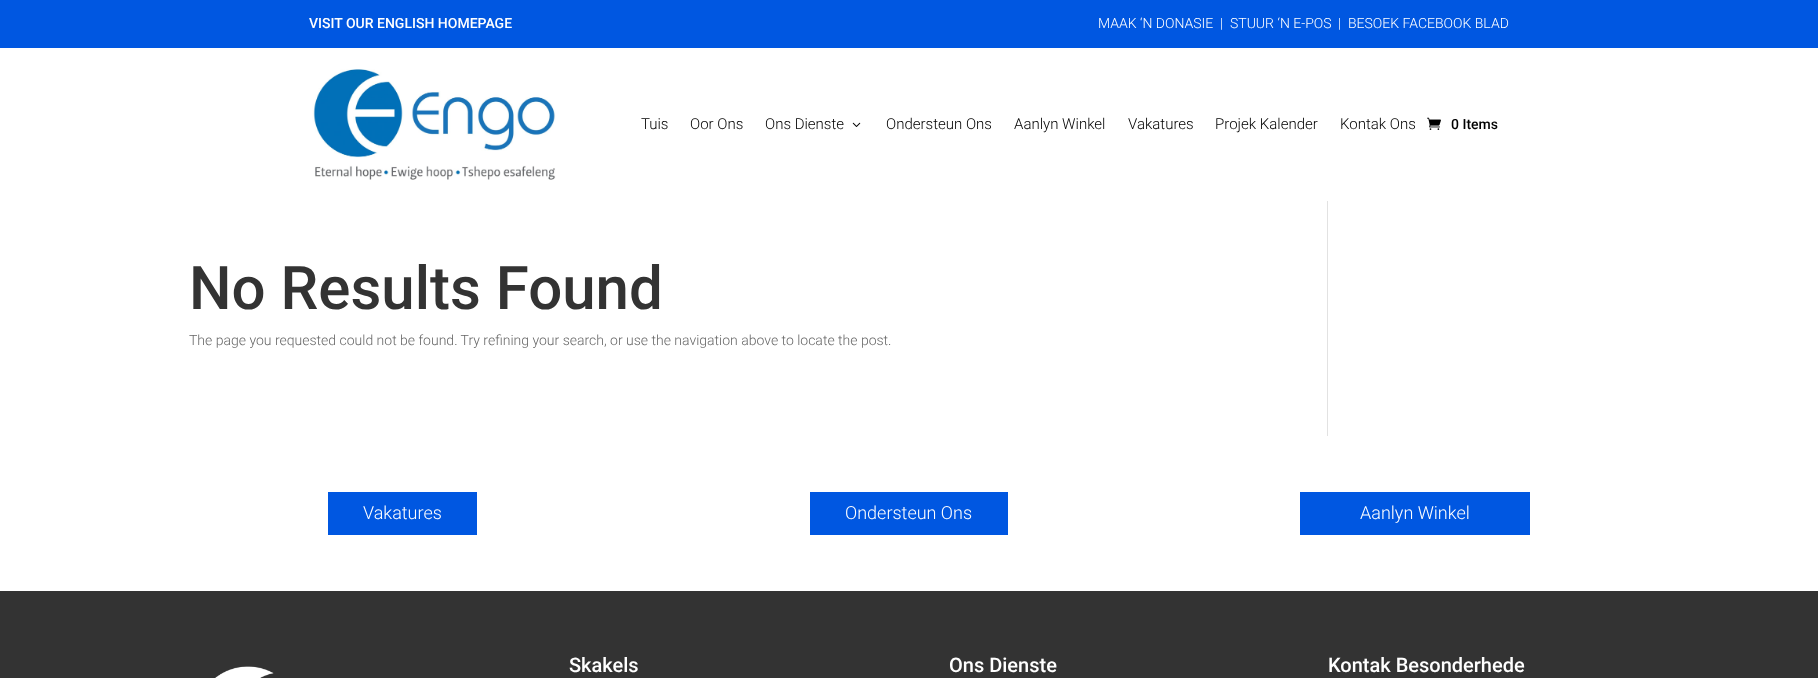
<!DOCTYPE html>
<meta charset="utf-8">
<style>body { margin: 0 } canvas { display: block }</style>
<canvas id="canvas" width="1818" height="678"></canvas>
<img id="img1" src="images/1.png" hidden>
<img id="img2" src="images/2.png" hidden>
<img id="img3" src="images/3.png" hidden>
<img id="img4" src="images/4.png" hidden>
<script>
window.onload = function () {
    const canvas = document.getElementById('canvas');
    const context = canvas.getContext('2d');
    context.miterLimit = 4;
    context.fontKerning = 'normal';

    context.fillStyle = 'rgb(255, 255, 255)';
    context.fillRect(0, 0, 1818, 678);
    context.fillStyle = 'rgb(0, 87, 225)';
    context.fillRect(0, 0, 1818, 48);
    context.drawImage(document.getElementById('img1'), 312, 69, 244, 111);
    context.drawImage(document.getElementById('img2'), 852, 122, 9, 5);
    context.drawImage(document.getElementById('img3'), 1427, 117, 14, 13);
    context.fillStyle = 'rgb(226, 226, 226)';
    context.fillRect(1327, 201, 1, 235);
    context.fillStyle = 'rgb(0, 87, 225)';
    context.fillRect(328, 492, 149, 43);
    context.fillRect(810, 492, 198, 43);
    context.fillRect(1300, 492, 230, 43);
    context.fillStyle = 'rgb(51, 51, 51)';
    context.fillRect(0, 591, 1818, 87);
    context.drawImage(document.getElementById('img4'), 215, 666, 59, 12);
    context.font = '500 14px Roboto';
    context.fillStyle = 'rgb(255, 255, 255)';
    context.fillText('VISIT OUR ENGLISH HOMEPAGE', 309, 28);
    context.font = '300 14px Roboto';
    context.fillText('MAAK ‘N DONASIE', 1098, 28);
    context.fillText('|', 1220, 28);
    context.fillText('STUUR ‘N E-POS', 1230, 28);
    context.fillText('|', 1338, 28);
    context.fillText('BESOEK FACEBOOK BLAD', 1348, 28);
    context.font = '300 15px Roboto';
    context.fillStyle = 'rgb(0, 0, 0)';
    context.fillText('Tuis', 641, 129);
    context.fillText('Oor Ons', 690, 129);
    context.fillText('Ons Dienste', 765, 129);
    context.fillText('Ondersteun Ons', 886, 129);
    context.fillText('Aanlyn Winkel', 1014, 129);
    context.fillText('Vakatures', 1128, 129);
    context.fillText('Projek Kalender', 1215, 129);
    context.fillText('Kontak Ons', 1340, 129);
    context.font = '500 14px Roboto';
    context.fillText('0 Items', 1451, 129);
    context.font = '500 60px Roboto';
    context.fillStyle = 'rgb(51, 51, 51)';
    context.fillText('No Results Found', 189, 309);
    context.font = '300 14px Roboto';
    context.fillStyle = 'rgb(102, 102, 102)';
    context.fillText('The page you requested could not be found. Try refining your search, or use the navigation above to locate the post.', 189, 345);
    context.font = '300 18px Roboto';
    context.fillStyle = 'rgb(255, 255, 255)';
    context.fillText('Vakatures', 363, 519);
    context.fillText('Ondersteun Ons', 845, 519);
    context.fillText('Aanlyn Winkel', 1360, 519);
    context.font = '500 20px Roboto';
    context.fillText('Skakels', 569, 672);
    context.fillText('Ons Dienste', 949, 672);
    context.fillText('Kontak Besonderhede', 1328, 672);
};
</script>
